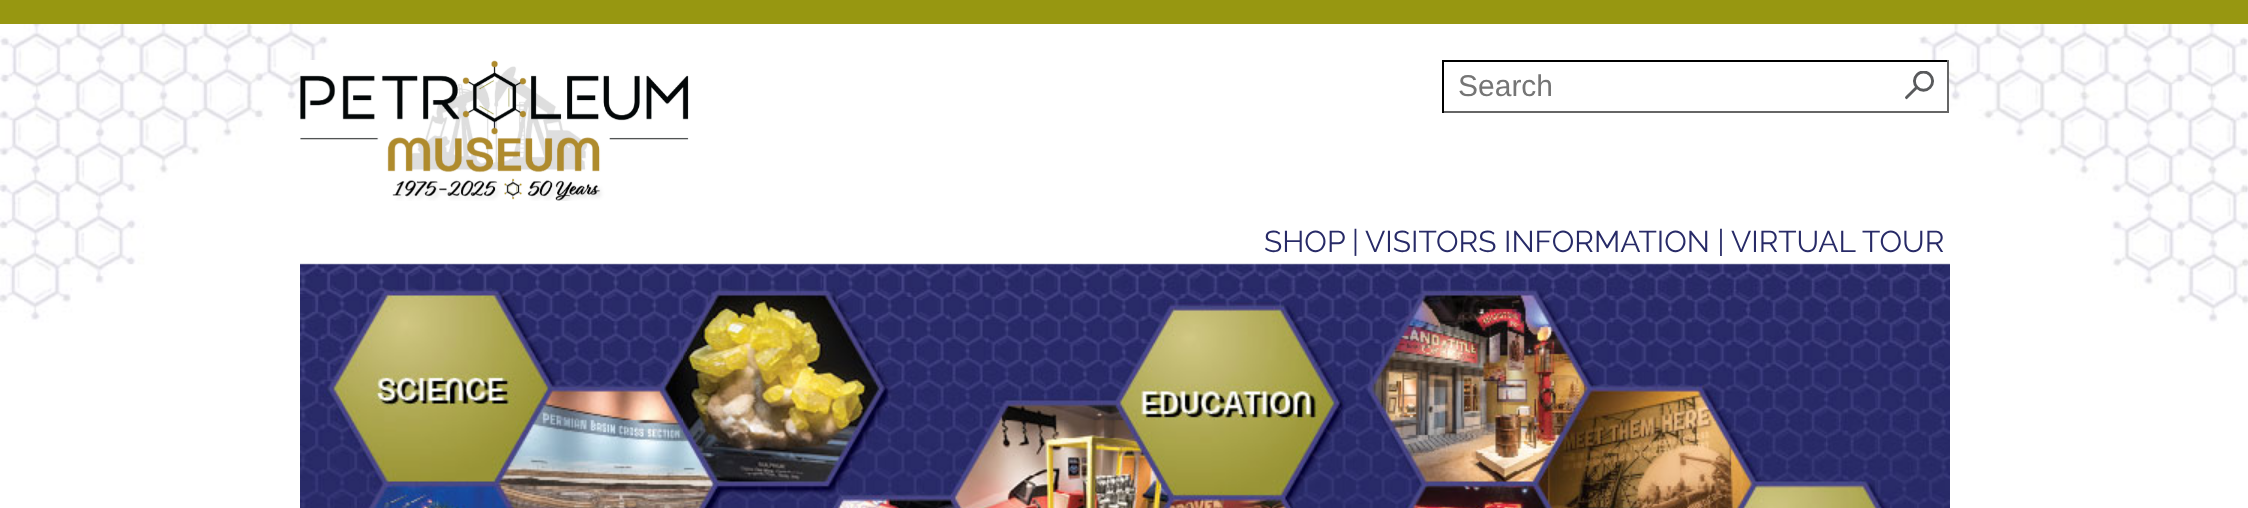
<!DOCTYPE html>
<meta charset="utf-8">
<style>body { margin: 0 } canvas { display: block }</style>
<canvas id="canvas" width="2248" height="508"></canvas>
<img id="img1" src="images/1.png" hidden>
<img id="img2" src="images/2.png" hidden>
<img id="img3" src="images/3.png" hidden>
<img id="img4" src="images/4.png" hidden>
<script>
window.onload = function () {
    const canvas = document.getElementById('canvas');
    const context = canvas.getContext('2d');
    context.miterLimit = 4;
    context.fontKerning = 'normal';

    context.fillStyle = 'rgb(255, 255, 255)';
    context.fillRect(0, 0, 2248, 508);
    context.fillStyle = 'rgb(151, 151, 17)';
    context.fillRect(0, 0, 2248, 24);
    context.drawImage(document.getElementById('img1'), 0, 24, 2248, 300);
    context.drawImage(document.getElementById('img2'), 300, 60, 389, 141);
    context.fillStyle = 'rgb(255, 255, 255)';
    context.fillRect(1919, 62, 28, 46);
    context.fillStyle = 'rgb(0, 0, 0)';
    context.fillRect(1442, 60, 507, 2);
    context.fillStyle = 'rgb(102, 102, 102)';
    context.fillRect(1947, 60, 2, 53);
    context.fillRect(1442, 111, 507, 2);
    context.fillStyle = 'rgb(0, 0, 0)';
    context.fillRect(1442, 60, 2, 53);
    context.drawImage(document.getElementById('img3'), 1905, 71, 29, 29);
    context.drawImage(document.getElementById('img4'), 300, 263, 1650, 245);
    context.font = '30px Liberation Sans';
    context.fillStyle = 'rgb(117, 117, 117)';
    context.fillText('Search', 1458, 96);
    context.font = '30px Raleway';
    context.fillStyle = 'rgb(39, 42, 103)';
    context.fillText('SHOP', 1264, 252);
    context.fillText('|', 1352, 252);
    context.fillText('VISITORS INFORMATION |', 1365, 252);
    context.fillText('VIRTUAL TOUR', 1731, 252);
};
</script>
